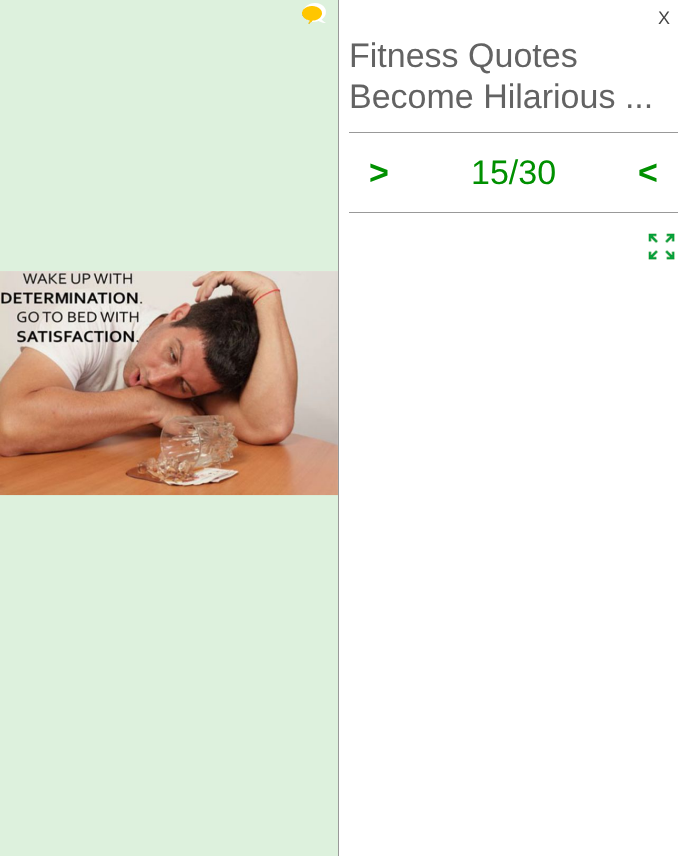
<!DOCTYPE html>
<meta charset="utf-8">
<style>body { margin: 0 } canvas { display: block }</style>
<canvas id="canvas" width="688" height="856"></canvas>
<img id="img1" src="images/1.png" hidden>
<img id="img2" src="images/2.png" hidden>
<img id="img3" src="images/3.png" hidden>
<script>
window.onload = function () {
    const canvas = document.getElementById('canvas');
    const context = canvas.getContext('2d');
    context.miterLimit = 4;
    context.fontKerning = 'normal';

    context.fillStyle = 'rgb(221, 241, 221)';
    context.fillRect(0, 0, 688, 856);
    context.drawImage(document.getElementById('img1'), 302, 3, 24, 21);
    context.drawImage(document.getElementById('img2'), 0, 271, 338, 225);
    context.fillStyle = 'rgb(255, 255, 255)';
    context.fillRect(339, 0, 349, 856);
    context.fillStyle = 'rgb(153, 153, 153)';
    context.fillRect(338, 0, 1, 856);
    context.fillRect(349, 132, 329, 1);
    context.fillRect(349, 212, 329, 1);
    context.drawImage(document.getElementById('img3'), 648, 233, 27, 27);
    context.font = '18px Liberation Sans';
    context.fillStyle = 'rgb(68, 68, 68)';
    context.fillText('X', 658, 24);
    context.font = '34px Liberation Sans';
    context.fillStyle = 'rgb(99, 99, 99)';
    context.fillText('Fitness Quotes', 349, 67);
    context.fillText('Become Hilarious ...', 349, 108);
    context.font = 'bold 34px Liberation Sans';
    context.fillStyle = 'rgb(0, 144, 0)';
    context.fillText('>', 369, 184);
    context.font = '34px Liberation Sans';
    context.fillText('15/30', 471, 184);
    context.font = 'bold 34px Liberation Sans';
    context.fillText('<', 638, 184);
};
</script>
